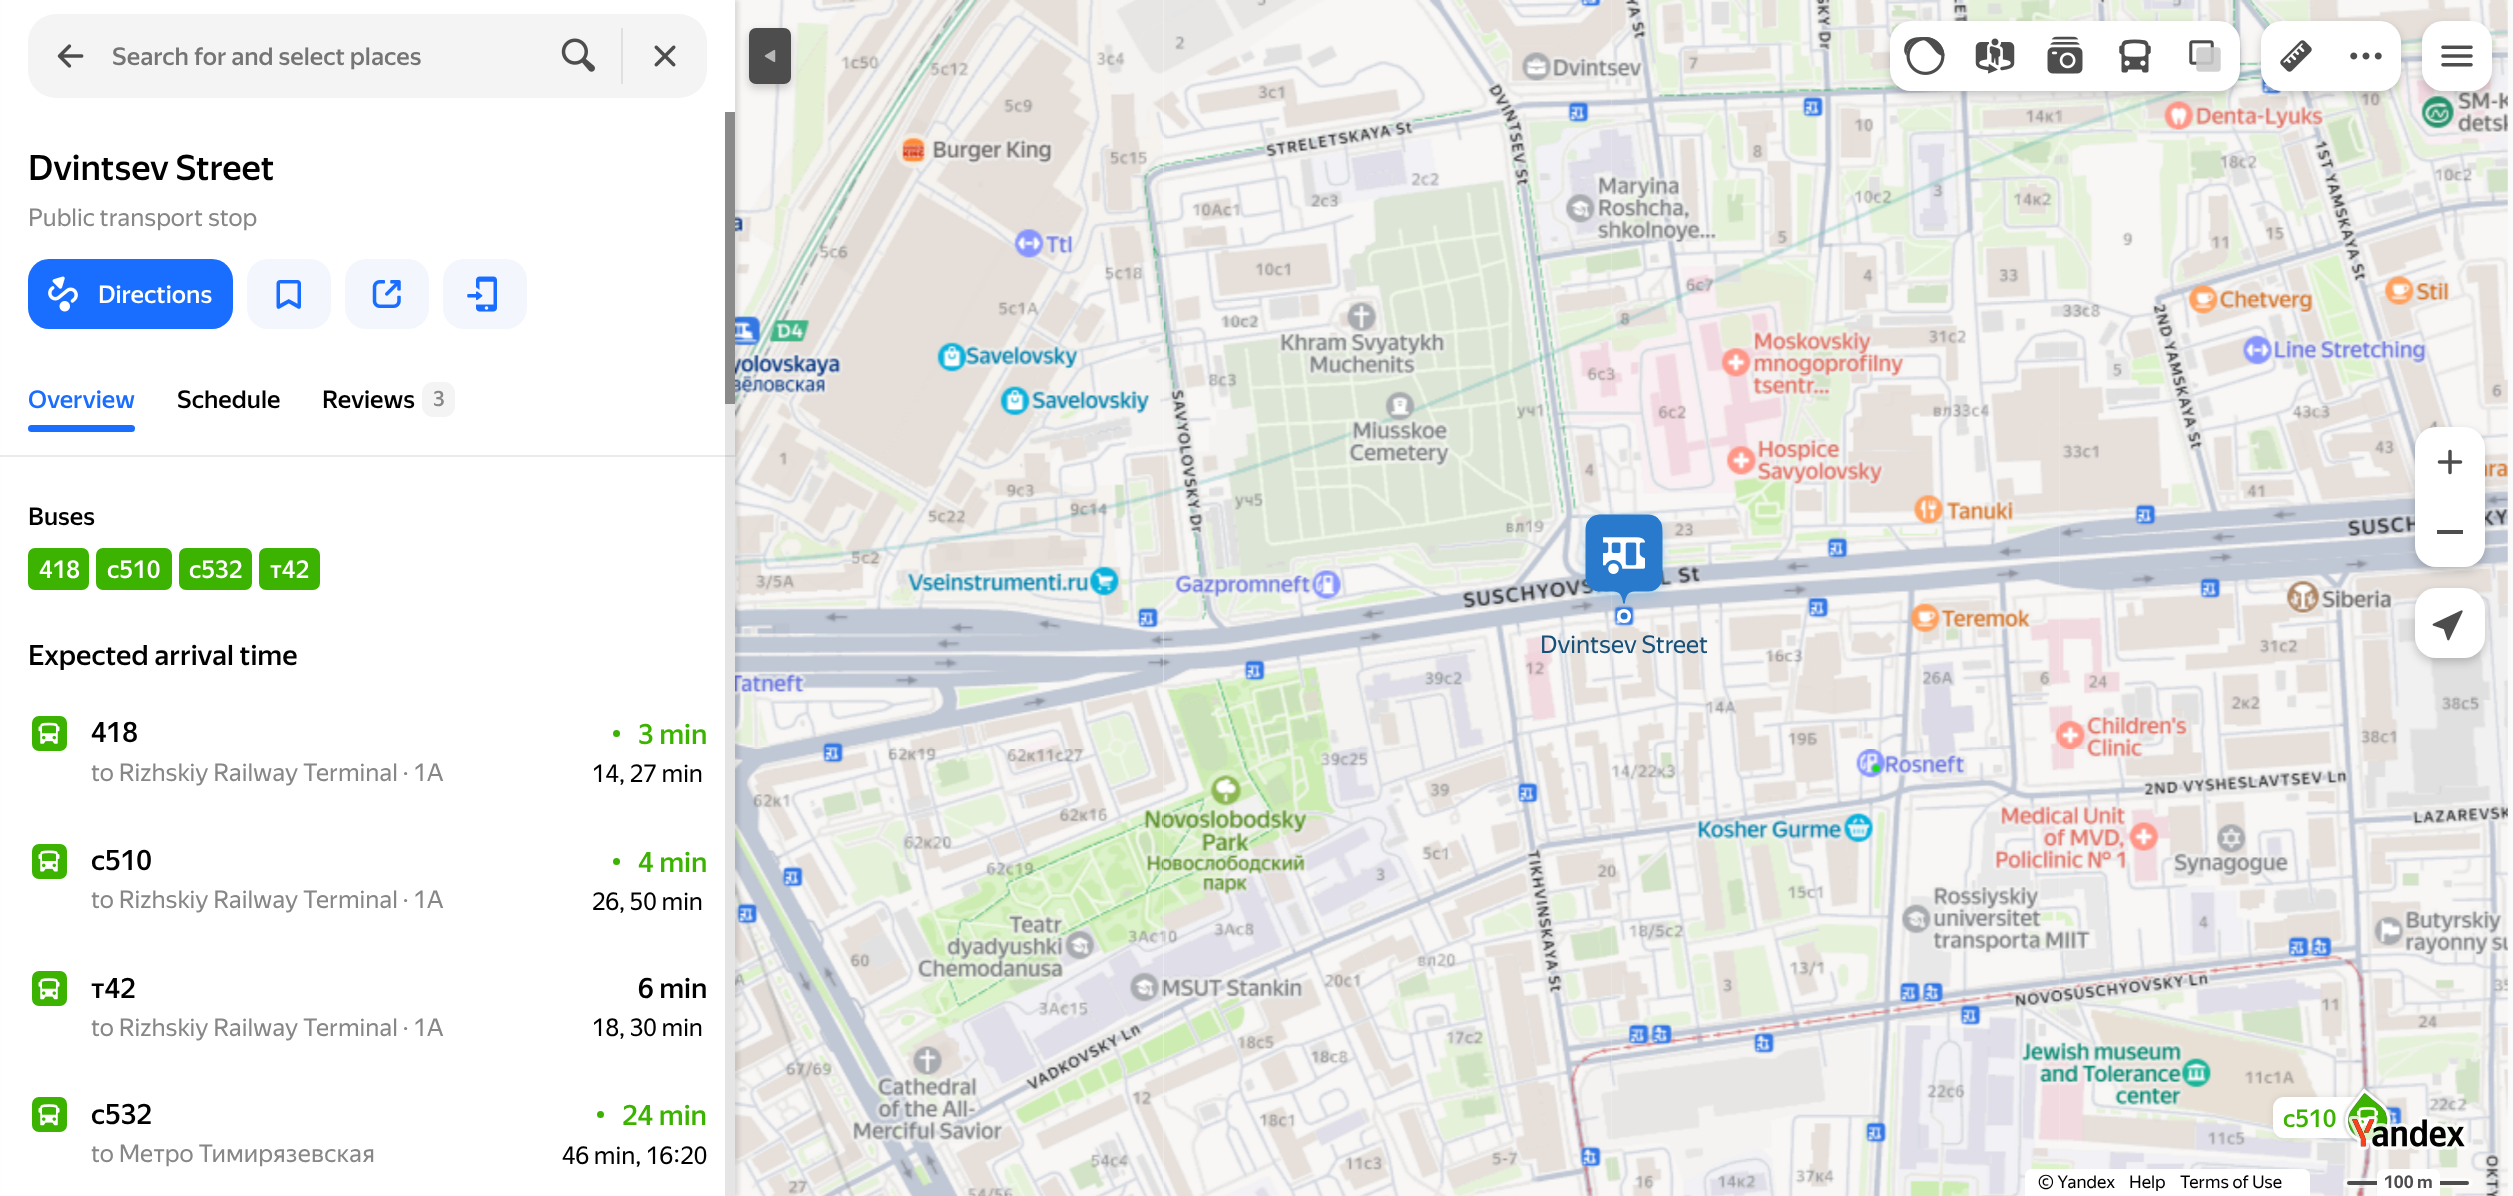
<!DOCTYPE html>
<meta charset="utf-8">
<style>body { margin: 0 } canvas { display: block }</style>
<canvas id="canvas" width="2513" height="1196"></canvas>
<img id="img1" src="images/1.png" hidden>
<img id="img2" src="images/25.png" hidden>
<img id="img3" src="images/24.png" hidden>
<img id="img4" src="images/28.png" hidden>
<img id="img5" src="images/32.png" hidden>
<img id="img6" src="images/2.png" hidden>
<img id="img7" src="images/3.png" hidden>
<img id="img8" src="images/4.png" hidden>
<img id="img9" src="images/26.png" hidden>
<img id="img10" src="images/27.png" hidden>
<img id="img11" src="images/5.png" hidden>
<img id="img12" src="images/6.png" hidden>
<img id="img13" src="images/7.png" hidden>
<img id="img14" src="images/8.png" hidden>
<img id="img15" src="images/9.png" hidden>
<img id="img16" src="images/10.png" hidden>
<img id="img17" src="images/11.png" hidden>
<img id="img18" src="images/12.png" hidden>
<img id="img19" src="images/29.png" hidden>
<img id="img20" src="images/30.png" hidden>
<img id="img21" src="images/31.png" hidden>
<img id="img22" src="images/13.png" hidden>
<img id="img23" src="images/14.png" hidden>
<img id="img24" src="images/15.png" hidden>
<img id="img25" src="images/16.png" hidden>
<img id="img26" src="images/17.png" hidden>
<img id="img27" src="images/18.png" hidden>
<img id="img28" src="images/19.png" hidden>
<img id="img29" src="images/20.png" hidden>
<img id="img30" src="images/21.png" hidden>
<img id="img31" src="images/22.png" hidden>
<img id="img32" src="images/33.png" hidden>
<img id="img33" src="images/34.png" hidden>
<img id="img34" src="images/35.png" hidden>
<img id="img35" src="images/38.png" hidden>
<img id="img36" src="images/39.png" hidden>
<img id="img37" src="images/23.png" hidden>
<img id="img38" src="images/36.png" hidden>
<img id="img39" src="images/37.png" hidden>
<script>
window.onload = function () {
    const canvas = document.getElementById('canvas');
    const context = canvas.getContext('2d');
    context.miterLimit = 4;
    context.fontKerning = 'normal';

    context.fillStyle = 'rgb(255, 255, 255)';
    context.fillRect(0, 0, 2513, 1196);
    context.drawImage(document.getElementById('img1'), 1163, 0, 1350, 1196);
    context.drawImage(document.getElementById('img2'), 1163, 0, 449, 301);
    context.drawImage(document.getElementById('img3'), 735, 0, 429, 301);
    context.drawImage(document.getElementById('img4'), 735, 301, 429, 448);
    context.drawImage(document.getElementById('img5'), 735, 749, 429, 447);
    context.fillStyle = 'rgba(0, 0, 0, 0.1)';
    context.filter = 'blur(2px)';
    context.beginPath();
    context.rect(4, 0, 735, 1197);
    context.fill();
    context.filter = 'none';
    context.fillStyle = 'rgba(0, 0, 0, 0.2)';
    context.filter = 'blur(5px)';
    context.beginPath();
    context.roundRect(749, 32, 42, 56, 7);
    context.fill();
    context.filter = 'none';
    context.fillStyle = 'rgb(255, 255, 255)';
    context.fillRect(1, 0, 734, 1196);
    context.fillStyle = 'rgb(244, 244, 244)';
    context.beginPath();
    context.roundRect(28, 14, 679, 84, 28);
    context.fill();
    context.drawImage(document.getElementById('img6'), 57, 44, 27, 24);
    context.drawImage(document.getElementById('img7'), 561, 38, 34, 34);
    context.fillStyle = 'rgb(224, 224, 224)';
    context.fillRect(621, 28, 2, 56);
    context.drawImage(document.getElementById('img8'), 654, 45, 22, 22);
    context.drawImage(document.getElementById('img9'), 1611, 0, 449, 301);
    context.drawImage(document.getElementById('img10'), 2059, 0, 449, 301);
    context.fillStyle = 'rgba(0, 0, 0, 0.2)';
    context.filter = 'blur(5px)';
    context.beginPath();
    context.roundRect(1890, 25, 350, 70, 21);
    context.fill();
    context.filter = 'none';
    context.fillStyle = 'rgb(255, 255, 255)';
    context.beginPath();
    context.roundRect(1890, 21, 70, 70, [21, 0, 0, 21]);
    context.fill();
    context.drawImage(document.getElementById('img11'), 1904, 37, 41, 38);
    context.fillRect(1960, 21, 210, 70);
    context.drawImage(document.getElementById('img12'), 1975, 38, 40, 36);
    context.beginPath();
    context.roundRect(2170, 21, 70, 70, [0, 21, 21, 0]);
    context.fill();
    context.drawImage(document.getElementById('img13'), 2189, 40, 32, 32);
    context.drawImage(document.getElementById('img14'), 2047, 36, 36, 38);
    context.drawImage(document.getElementById('img15'), 2119, 39, 32, 34);
    context.fillStyle = 'rgba(0, 0, 0, 0.2)';
    context.filter = 'blur(5px)';
    context.beginPath();
    context.roundRect(2261, 25, 140, 70, 21);
    context.fill();
    context.filter = 'none';
    context.fillStyle = 'rgb(255, 255, 255)';
    context.beginPath();
    context.roundRect(2261, 21, 70, 70, [21, 0, 0, 21]);
    context.fill();
    context.drawImage(document.getElementById('img16'), 2280, 40, 32, 32);
    context.beginPath();
    context.roundRect(2331, 21, 70, 70, [0, 21, 21, 0]);
    context.fill();
    context.drawImage(document.getElementById('img17'), 2350, 52, 32, 8);
    context.fillStyle = 'rgba(0, 0, 0, 0.2)';
    context.filter = 'blur(5px)';
    context.beginPath();
    context.roundRect(2422, 25, 70, 70, 21);
    context.fill();
    context.filter = 'none';
    context.fillStyle = 'rgb(255, 255, 255)';
    context.beginPath();
    context.roundRect(2422, 21, 70, 70, 21);
    context.fill();
    context.drawImage(document.getElementById('img18'), 2441, 45, 32, 22);
    context.drawImage(document.getElementById('img19'), 1163, 301, 449, 448);
    context.drawImage(document.getElementById('img20'), 1611, 301, 449, 448);
    context.drawImage(document.getElementById('img21'), 2059, 301, 449, 448);
    context.fillStyle = 'rgba(0, 0, 0, 0.2)';
    context.filter = 'blur(5px)';
    context.beginPath();
    context.roundRect(2415, 431, 70, 140, 21);
    context.fill();
    context.filter = 'none';
    context.fillStyle = 'rgb(255, 255, 255)';
    context.beginPath();
    context.roundRect(2415, 427, 70, 70, [21, 21, 0, 0]);
    context.fill();
    context.drawImage(document.getElementById('img22'), 2437, 449, 26, 26);
    context.beginPath();
    context.roundRect(2415, 497, 70, 70, [0, 0, 21, 21]);
    context.fill();
    context.fillStyle = 'rgb(77, 77, 77)';
    context.fillRect(2437, 530, 26, 4);
    context.fillStyle = 'rgba(0, 0, 0, 0.2)';
    context.filter = 'blur(5px)';
    context.beginPath();
    context.roundRect(2415, 592, 70, 70, 21);
    context.fill();
    context.filter = 'none';
    context.fillStyle = 'rgb(255, 255, 255)';
    context.beginPath();
    context.roundRect(2415, 588, 70, 70, 21);
    context.fill();
    context.drawImage(document.getElementById('img23'), 2432, 610, 31, 31);
    context.fillStyle = 'rgb(77, 77, 77)';
    context.beginPath();
    context.roundRect(749, 28, 42, 56, 7);
    context.fill();
    context.drawImage(document.getElementById('img24'), 764, 49, 12, 14);
    context.fillStyle = 'rgb(25, 109, 255)';
    context.beginPath();
    context.roundRect(28, 259, 205, 70, 21);
    context.fill();
    context.drawImage(document.getElementById('img25'), 48, 276, 30, 36);
    context.fillStyle = 'rgb(243, 246, 252)';
    context.beginPath();
    context.roundRect(247, 259, 84, 70, 21);
    context.fill();
    context.drawImage(document.getElementById('img26'), 276, 280, 25, 29);
    context.beginPath();
    context.roundRect(345, 259, 84, 70, 21);
    context.fill();
    context.drawImage(document.getElementById('img27'), 372, 280, 29, 28);
    context.beginPath();
    context.roundRect(443, 259, 84, 70, 21);
    context.fill();
    context.drawImage(document.getElementById('img28'), 467, 276, 30, 36);
    context.fillStyle = 'rgb(244, 244, 244)';
    context.beginPath();
    context.roundRect(422, 382, 33, 35, 11);
    context.fill();
    context.fillStyle = 'rgb(25, 109, 255)';
    context.beginPath();
    context.roundRect(28, 425, 107, 7, 3.5);
    context.fill();
    context.fillStyle = 'rgb(235, 235, 235)';
    context.fillRect(0, 455, 735, 2);
    context.fillStyle = 'rgb(59, 179, 0)';
    context.beginPath();
    context.roundRect(28, 548, 61, 42, 7);
    context.fill();
    context.beginPath();
    context.roundRect(96, 548, 76, 42, 7);
    context.fill();
    context.beginPath();
    context.roundRect(179, 548, 73, 42, 7);
    context.fill();
    context.beginPath();
    context.roundRect(259, 548, 61, 42, 7);
    context.fill();
    context.beginPath();
    context.roundRect(32, 716, 35, 35, 7);
    context.fill();
    context.drawImage(document.getElementById('img29'), 38, 722, 22, 22);
    context.beginPath();
    context.arc(616.5, 733.5, 3.5, 0, 2 * Math.PI);
    context.fill();
    context.beginPath();
    context.roundRect(32, 844, 35, 35, 7);
    context.fill();
    context.drawImage(document.getElementById('img30'), 38, 850, 22, 22);
    context.beginPath();
    context.arc(616.5, 861.5, 3.5, 0, 2 * Math.PI);
    context.fill();
    context.beginPath();
    context.roundRect(32, 971, 35, 35, 7);
    context.fill();
    context.drawImage(document.getElementById('img31'), 38, 978, 22, 22);
    context.beginPath();
    context.roundRect(32, 1097, 35, 35, 7);
    context.fill();
    context.drawImage(document.getElementById('img31'), 38, 1104, 22, 22);
    context.beginPath();
    context.arc(600.5, 1114.5, 3.5, 0, 2 * Math.PI);
    context.fill();
    context.fillStyle = 'rgb(138, 138, 138)';
    context.fillRect(725, 112, 10, 292);
    context.fillStyle = 'rgba(0, 0, 0, 0.1)';
    context.fillRect(725, 404, 10, 792);
    context.drawImage(document.getElementById('img32'), 1163, 749, 449, 447);
    context.drawImage(document.getElementById('img33'), 1611, 749, 449, 447);
    context.drawImage(document.getElementById('img34'), 2059, 749, 449, 447);
    context.filter = 'blur(3.5px)';
    context.beginPath();
    context.roundRect(2273, 1097, 95, 41, 11);
    context.fill();
    context.filter = 'none';
    context.fillStyle = 'rgb(255, 255, 255)';
    context.beginPath();
    context.roundRect(2273, 1097, 95, 41, 11);
    context.fill();
    context.drawImage(document.getElementById('img35'), 2342, 1086, 51, 60);
    context.drawImage(document.getElementById('img36'), 2356, 1107, 22, 22);
    context.drawImage(document.getElementById('img37'), 2348, 1116, 120, 34);
    context.beginPath();
    context.moveTo(2032, 1169);
    context.lineTo(2303, 1169);
    context.bezierCurveTo(2307, 1169, 2310, 1172, 2310, 1176);
    context.lineTo(2310, 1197);
    context.lineTo(2025, 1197);
    context.lineTo(2025, 1176);
    context.bezierCurveTo(2025, 1172, 2028, 1169, 2032, 1169);
    context.closePath();
    context.fill();
    context.fillStyle = 'rgba(255, 255, 255, 0.6)';
    context.beginPath();
    context.roundRect(2343, 1178, 130, 10, 5);
    context.fill();
    context.fillStyle = 'rgb(77, 77, 77)';
    context.beginPath();
    context.roundRect(2347, 1181, 122, 4, 2);
    context.fill();
    context.fillStyle = 'rgb(255, 255, 255)';
    context.beginPath();
    context.moveTo(2384, 1169);
    context.lineTo(2433, 1169);
    context.bezierCurveTo(2437, 1169, 2440, 1172, 2440, 1176);
    context.lineTo(2440, 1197);
    context.lineTo(2377, 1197);
    context.lineTo(2377, 1176);
    context.bezierCurveTo(2377, 1172, 2380, 1169, 2384, 1169);
    context.closePath();
    context.fill();
    context.drawImage(document.getElementById('img38'), 1577, 510, 94, 113);
    context.drawImage(document.getElementById('img39'), 1603, 537, 42, 37);
    context.font = '500 24.5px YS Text';
    context.fillStyle = 'rgb(117, 117, 117)';
    context.fillText('Search for and select places', 112, 65);
    context.font = '500 35px YS Text';
    context.fillStyle = 'rgb(0, 0, 0)';
    context.fillText('Dvintsev Street', 28, 180);
    context.font = '24.5px YS Text';
    context.fillStyle = 'rgb(135, 135, 135)';
    context.fillText('Public transport stop', 28, 226);
    context.font = '500 24.5px YS Text';
    context.fillStyle = 'rgb(255, 255, 255)';
    context.fillText('Directions', 98, 303);
    context.fillStyle = 'rgb(25, 109, 255)';
    context.fillText('Overview', 28, 408);
    context.fillStyle = 'rgb(0, 0, 0)';
    context.fillText('Schedule', 177, 408);
    context.fillText('Reviews', 322, 408);
    context.font = '500 21px YS Text';
    context.fillStyle = 'rgb(135, 135, 135)';
    context.fillText('3', 433, 406);
    context.font = '500 24.5px YS Text';
    context.fillStyle = 'rgb(0, 0, 0)';
    context.fillText('Buses', 28, 525);
    context.fillStyle = 'rgb(255, 255, 255)';
    context.fillText('418', 39, 578);
    context.fillText('с510', 107, 578);
    context.fillText('с532', 189, 578);
    context.fillText('т42', 270, 578);
    context.font = '500 28px YS Text';
    context.fillStyle = 'rgb(0, 0, 0)';
    context.fillText('Expected arrival time', 28, 665);
    context.fillText('418', 91, 742);
    context.font = '24.5px YS Text';
    context.fillStyle = 'rgb(135, 135, 135)';
    context.fillText('to Rizhskiy Railway Terminal · 1A', 91, 781);
    context.font = '500 28px YS Text';
    context.fillStyle = 'rgb(59, 179, 0)';
    context.fillText('3 min', 638, 744);
    context.font = '24.5px YS Text';
    context.fillStyle = 'rgb(0, 0, 0)';
    context.fillText('14, 27 min', 592, 782);
    context.font = '500 28px YS Text';
    context.fillText('с510', 91, 870);
    context.font = '24.5px YS Text';
    context.fillStyle = 'rgb(135, 135, 135)';
    context.fillText('to Rizhskiy Railway Terminal · 1A', 91, 908);
    context.font = '500 28px YS Text';
    context.fillStyle = 'rgb(59, 179, 0)';
    context.fillText('4 min', 638, 872);
    context.font = '24.5px YS Text';
    context.fillStyle = 'rgb(0, 0, 0)';
    context.fillText('26, 50 min', 592, 910);
    context.font = '500 28px YS Text';
    context.fillText('т42', 91, 998);
    context.font = '24.5px YS Text';
    context.fillStyle = 'rgb(135, 135, 135)';
    context.fillText('to Rizhskiy Railway Terminal · 1A', 91, 1036);
    context.font = '500 28px YS Text';
    context.fillStyle = 'rgb(0, 0, 0)';
    context.fillText('6 min', 638, 998);
    context.font = '24.5px YS Text';
    context.fillText('18, 30 min', 592, 1036);
    context.font = '500 28px YS Text';
    context.fillText('с532', 91, 1124);
    context.font = '24.5px YS Text';
    context.fillStyle = 'rgb(135, 135, 135)';
    context.fillText('to Метро Тимирязевская', 91, 1162);
    context.font = '500 28px YS Text';
    context.fillStyle = 'rgb(59, 179, 0)';
    context.fillText('24 min', 622, 1125);
    context.font = '24.5px YS Text';
    context.fillStyle = 'rgb(0, 0, 0)';
    context.fillText('46 min, 16:20', 562, 1164);
    context.font = '17.5px YS Text';
    context.fillText('© Yandex', 2038, 1188);
    context.fillText('Help', 2129, 1188);
    context.fillText('Terms of Use', 2180, 1188);
    context.font = 'bold 17.5px YS Text';
    context.fillStyle = 'rgb(77, 77, 77)';
    context.fillText('100 m', 2384, 1188);
    context.font = '24.5px YS Text';
    context.fillStyle = 'rgb(23, 80, 120)';
    context.fillText('Dvintsev Street', 1540, 653);
    context.font = '500 24.5px YS Text';
    context.fillStyle = 'rgb(59, 179, 0)';
    context.fillText('с510', 2283, 1127);
};
</script>
